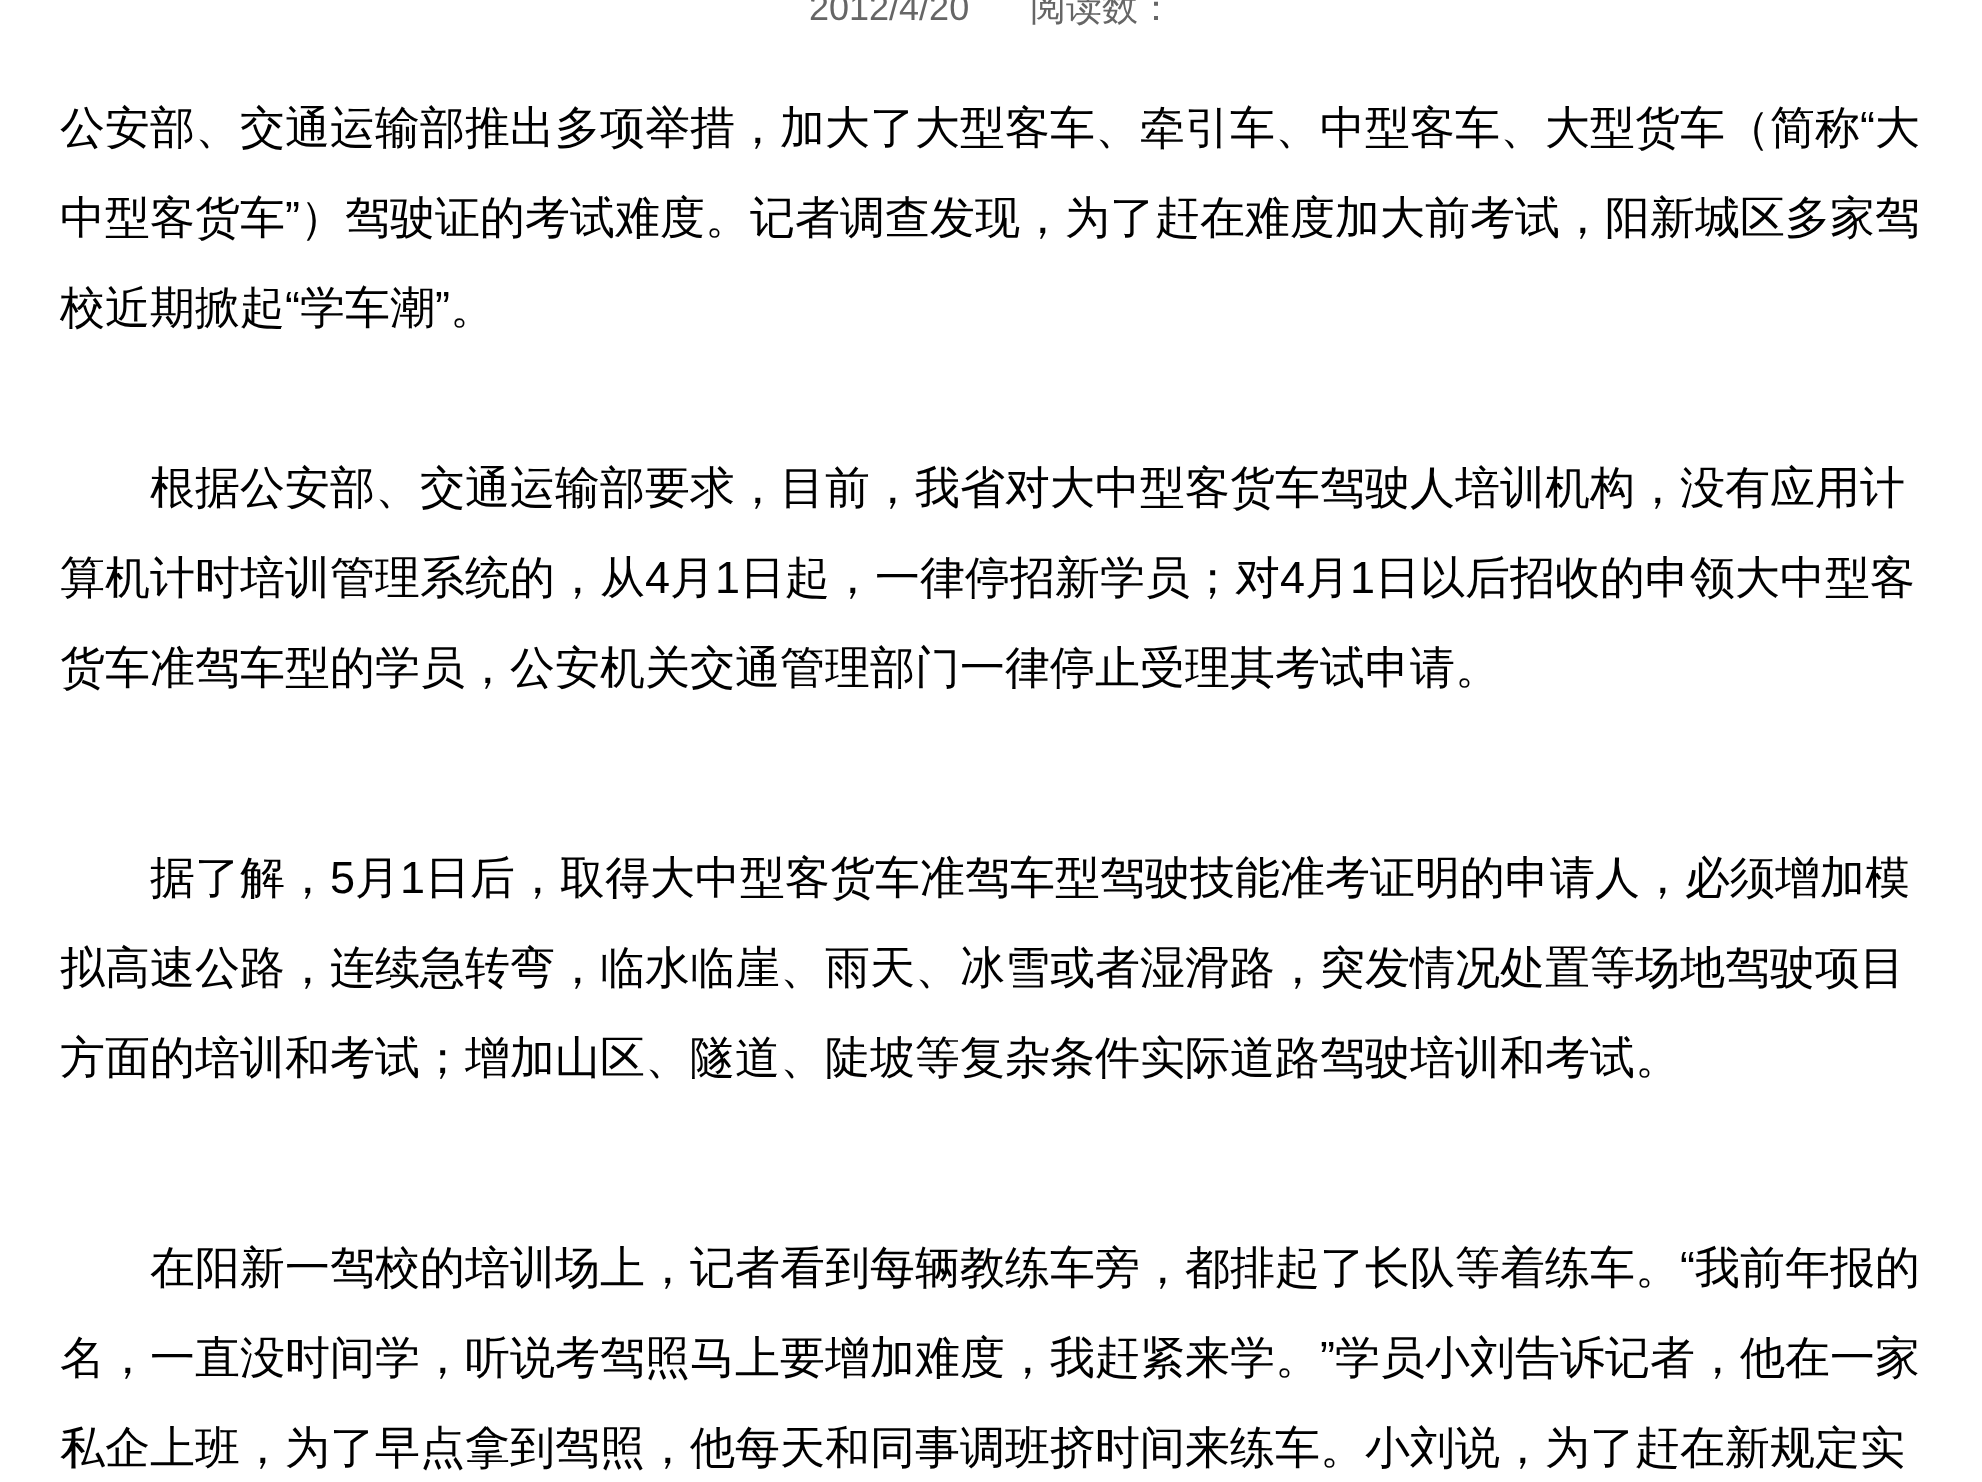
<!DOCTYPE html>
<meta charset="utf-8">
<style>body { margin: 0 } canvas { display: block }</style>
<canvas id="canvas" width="1982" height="1482"></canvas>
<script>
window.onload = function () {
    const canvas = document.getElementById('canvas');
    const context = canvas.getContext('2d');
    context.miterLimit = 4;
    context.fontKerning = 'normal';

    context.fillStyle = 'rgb(255, 255, 255)';
    context.fillRect(0, 0, 1982, 1482);
    context.font = '36px Liberation Sans';
    context.fillStyle = 'rgb(102, 102, 102)';
    context.fillText('2012/4/20', 809, 20);
    context.font = '500 36px WenQuanYi Zen Hei';
    context.fillText('阅读数：', 1030, 20);
    context.font = '500 45px WenQuanYi Zen Hei';
    context.fillStyle = 'rgb(0, 0, 0)';
    context.fillText('公安部、交通运输部推出多项举措，加大了大型客车、牵引车、中型客车、大型货车（简称', 60, 143);
    context.font = '45px Liberation Sans';
    context.fillText('“', 1860, 143);
    context.font = '500 45px WenQuanYi Zen Hei';
    context.fillText('大', 1875, 143);
    context.fillText('中型客货车', 60, 233);
    context.font = '45px Liberation Sans';
    context.fillText('”', 285, 233);
    context.font = '500 45px WenQuanYi Zen Hei';
    context.fillText('）驾驶证的考试难度。记者调查发现，为了赶在难度加大前考试，阳新城区多家驾', 300, 233);
    context.fillText('校近期掀起', 60, 323);
    context.font = '45px Liberation Sans';
    context.fillText('“', 285, 323);
    context.font = '500 45px WenQuanYi Zen Hei';
    context.fillText('学车潮', 300, 323);
    context.font = '45px Liberation Sans';
    context.fillText('”', 435, 323);
    context.font = '500 45px WenQuanYi Zen Hei';
    context.fillText('。', 450, 323);
    context.fillText('根据公安部、交通运输部要求，目前，我省对大中型客货车驾驶人培训机构，没有应用计', 150, 503);
    context.fillText('算机计时培训管理系统的，从', 60, 593);
    context.font = '45px Liberation Sans';
    context.fillText('4', 645, 593);
    context.font = '500 45px WenQuanYi Zen Hei';
    context.fillText('月', 670, 593);
    context.font = '45px Liberation Sans';
    context.fillText('1', 715, 593);
    context.font = '500 45px WenQuanYi Zen Hei';
    context.fillText('日起，一律停招新学员；对', 740, 593);
    context.font = '45px Liberation Sans';
    context.fillText('4', 1280, 593);
    context.font = '500 45px WenQuanYi Zen Hei';
    context.fillText('月', 1305, 593);
    context.font = '45px Liberation Sans';
    context.fillText('1', 1350, 593);
    context.font = '500 45px WenQuanYi Zen Hei';
    context.fillText('日以后招收的申领大中型客', 1375, 593);
    context.fillText('货车准驾车型的学员，公安机关交通管理部门一律停止受理其考试申请。', 60, 683);
    context.fillText('据了解，', 150, 893);
    context.font = '45px Liberation Sans';
    context.fillText('5', 330, 893);
    context.font = '500 45px WenQuanYi Zen Hei';
    context.fillText('月', 355, 893);
    context.font = '45px Liberation Sans';
    context.fillText('1', 400, 893);
    context.font = '500 45px WenQuanYi Zen Hei';
    context.fillText('日后，取得大中型客货车准驾车型驾驶技能准考证明的申请人，必须增加模', 425, 893);
    context.fillText('拟高速公路，连续急转弯，临水临崖、雨天、冰雪或者湿滑路，突发情况处置等场地驾驶项目', 60, 983);
    context.fillText('方面的培训和考试；增加山区、隧道、陡坡等复杂条件实际道路驾驶培训和考试。', 60, 1073);
    context.fillText('在阳新一驾校的培训场上，记者看到每辆教练车旁，都排起了长队等着练车。', 150, 1283);
    context.font = '45px Liberation Sans';
    context.fillText('“', 1680, 1283);
    context.font = '500 45px WenQuanYi Zen Hei';
    context.fillText('我前年报的', 1695, 1283);
    context.fillText('名，一直没时间学，听说考驾照马上要增加难度，我赶紧来学。', 60, 1373);
    context.font = '45px Liberation Sans';
    context.fillText('”', 1320, 1373);
    context.font = '500 45px WenQuanYi Zen Hei';
    context.fillText('学员小刘告诉记者，他在一家', 1335, 1373);
    context.fillText('私企上班，为了早点拿到驾照，他每天和同事调班挤时间来练车。小刘说，为了赶在新规定实', 60, 1463);
};
</script>
